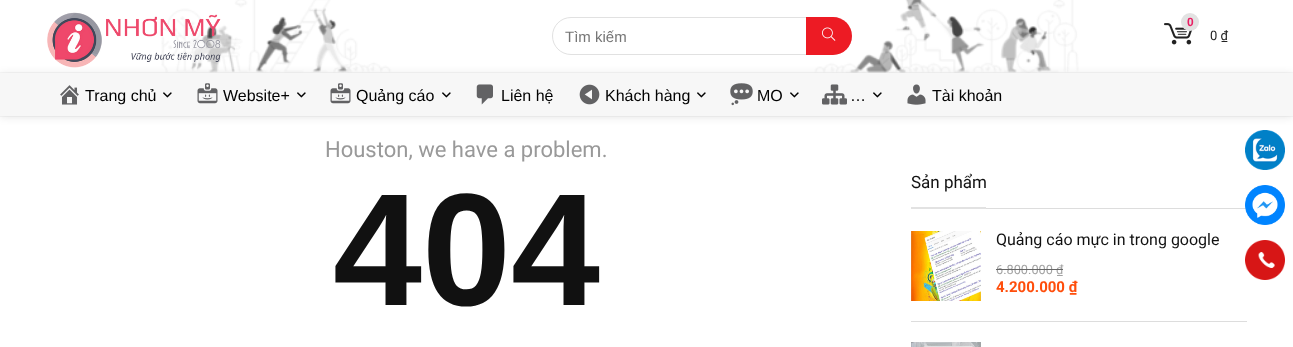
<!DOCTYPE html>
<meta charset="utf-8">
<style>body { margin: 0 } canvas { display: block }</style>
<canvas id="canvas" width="1293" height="347"></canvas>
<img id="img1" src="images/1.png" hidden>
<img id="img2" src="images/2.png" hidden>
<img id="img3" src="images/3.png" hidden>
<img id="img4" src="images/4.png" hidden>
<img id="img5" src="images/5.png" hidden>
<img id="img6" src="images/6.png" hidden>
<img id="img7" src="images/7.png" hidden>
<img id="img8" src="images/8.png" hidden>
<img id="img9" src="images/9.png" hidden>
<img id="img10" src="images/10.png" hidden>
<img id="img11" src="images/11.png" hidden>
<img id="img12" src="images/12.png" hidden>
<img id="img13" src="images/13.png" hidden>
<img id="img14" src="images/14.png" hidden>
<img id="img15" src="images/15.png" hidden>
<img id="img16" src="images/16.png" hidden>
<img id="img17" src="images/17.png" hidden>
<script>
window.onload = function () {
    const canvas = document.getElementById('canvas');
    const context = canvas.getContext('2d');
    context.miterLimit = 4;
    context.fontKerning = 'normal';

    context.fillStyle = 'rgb(255, 255, 255)';
    context.fillRect(0, 0, 1293, 347);
    context.drawImage(document.getElementById('img1'), 161, 0, 918, 73);
    context.strokeStyle = 'rgba(0, 0, 0, 0.03)';
    context.strokeRect(-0.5, 72.5, 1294, 44);
    context.fillStyle = 'rgba(0, 0, 0, 0.1)';
    context.filter = 'blur(4px)';
    context.beginPath();
    context.rect(0, 74, 1293, 43);
    context.fill();
    context.filter = 'none';
    context.drawImage(document.getElementById('img2'), 47, 12, 174, 56);
    context.beginPath();
    context.roundRect(552.5, 17.5, 299, 37, 18.5);
    context.strokeStyle = 'rgb(225, 225, 225)';
    context.stroke();
    context.fillStyle = 'rgb(237, 27, 36)';
    context.beginPath();
    context.roundRect(806, 17, 46, 38, [0, 19, 19, 0]);
    context.fill();
    context.drawImage(document.getElementById('img3'), 822, 27, 14, 14);
    context.drawImage(document.getElementById('img4'), 1164, 23, 28, 22);
    context.fillStyle = 'rgb(226, 226, 226)';
    context.beginPath();
    context.arc(1190, 22, 9, 0, 2 * Math.PI);
    context.fill();
    context.fillStyle = 'rgb(247, 247, 247)';
    context.fillRect(0, 73, 1293, 43);
    context.drawImage(document.getElementById('img5'), 60, 85, 19, 20);
    context.drawImage(document.getElementById('img6'), 163, 92, 9, 6);
    context.drawImage(document.getElementById('img7'), 197, 83, 21, 21);
    context.drawImage(document.getElementById('img6'), 297, 92, 9, 6);
    context.drawImage(document.getElementById('img7'), 330, 83, 21, 21);
    context.drawImage(document.getElementById('img6'), 442, 92, 9, 6);
    context.drawImage(document.getElementById('img8'), 476, 84, 17, 21);
    context.drawImage(document.getElementById('img9'), 579, 84, 21, 21);
    context.drawImage(document.getElementById('img6'), 697, 92, 9, 6);
    context.drawImage(document.getElementById('img10'), 730, 83, 23, 23);
    context.drawImage(document.getElementById('img6'), 790, 92, 9, 6);
    context.drawImage(document.getElementById('img11'), 822, 84, 25, 21);
    context.drawImage(document.getElementById('img6'), 873, 92, 9, 6);
    context.drawImage(document.getElementById('img12'), 907, 84, 19, 21);
    context.fillStyle = 'rgb(221, 221, 221)';
    context.fillRect(986, 208, 261, 1);
    context.fillStyle = 'rgb(226, 226, 226)';
    context.fillRect(911, 207, 75, 2);
    context.fillStyle = 'rgb(221, 221, 221)';
    context.fillRect(911, 321, 336, 1);
    context.drawImage(document.getElementById('img13'), 911, 231, 70, 70);
    context.drawImage(document.getElementById('img14'), 911, 342, 70, 5);
    context.drawImage(document.getElementById('img15'), 1245, 130, 40, 40);
    context.drawImage(document.getElementById('img16'), 1245, 185, 40, 40);
    context.drawImage(document.getElementById('img17'), 1245, 240, 40, 40);
    context.font = '15px Liberation Sans';
    context.fillStyle = 'rgb(117, 117, 117)';
    context.fillText('Tìm kiếm', 565, 42);
    context.font = 'bold 12px Liberation Sans';
    context.fillStyle = 'rgb(233, 30, 99)';
    context.fillText('0', 1187, 26);
    context.font = '13px Roboto';
    context.fillStyle = 'rgb(34, 34, 34)';
    context.fillText('0 ₫', 1210, 40);
    context.font = '16px Liberation Sans';
    context.fillStyle = 'rgb(1, 1, 1)';
    context.fillText('Trang chủ', 85, 101);
    context.fillText('Website+', 223, 101);
    context.fillText('Quảng cáo', 356, 101);
    context.fillText('Liên hệ', 501, 101);
    context.fillText('Khách hàng', 605, 101);
    context.fillText('MO', 757, 101);
    context.fillText('…', 850, 101);
    context.fillText('Tài khoản', 932, 101);
    context.font = '22px Roboto';
    context.fillStyle = 'rgb(153, 153, 153)';
    context.fillText('Houston, we have a problem.', 325, 157);
    context.font = 'bold 160px Liberation Sans';
    context.fillStyle = 'rgb(17, 17, 17)';
    context.fillText('404', 333, 305);
    context.font = '17px Roboto';
    context.fillText('Sản phẩm', 911, 188);
    context.font = '16px Roboto';
    context.fillText('Quảng cáo mực in trong google', 996, 245);
    context.font = '12.75px Roboto';
    context.fillStyle = 'rgb(163, 163, 163)';
    context.fillText('6.800.000 ₫', 996, 274);
    context.fillStyle = 'rgb(102, 102, 102)';
    context.fillRect(996, 269, 67, 1);
    context.font = 'bold 15px Roboto';
    context.fillStyle = 'rgb(255, 78, 12)';
    context.fillText('4.200.000 ₫', 996, 292);
};
</script>
